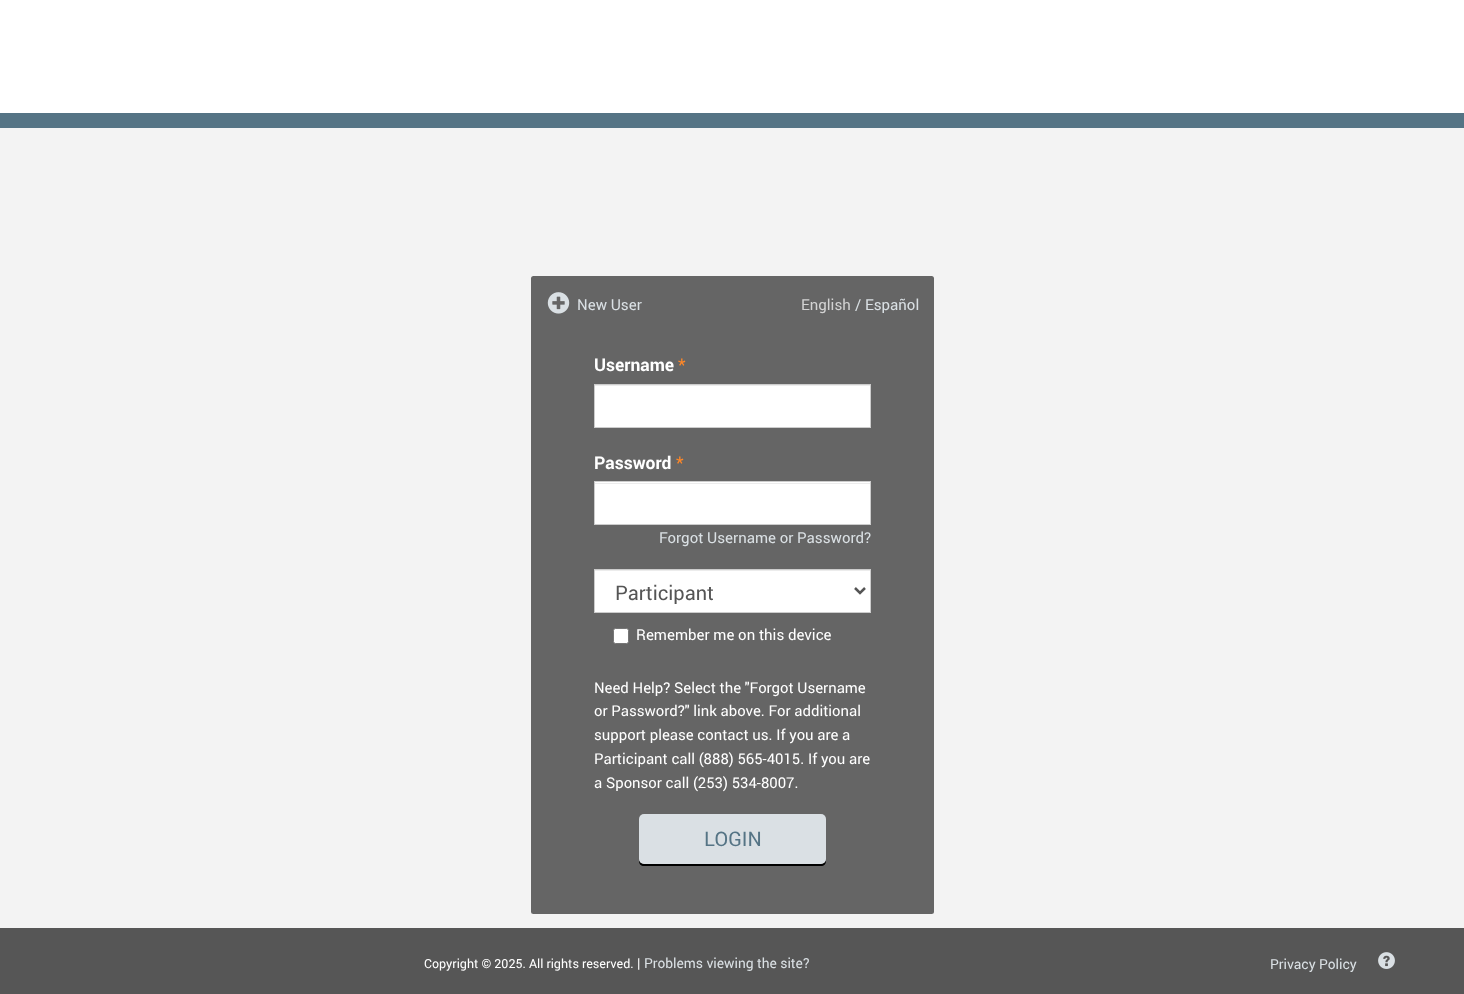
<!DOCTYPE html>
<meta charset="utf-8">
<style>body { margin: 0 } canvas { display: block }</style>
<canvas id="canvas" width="1464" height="994"></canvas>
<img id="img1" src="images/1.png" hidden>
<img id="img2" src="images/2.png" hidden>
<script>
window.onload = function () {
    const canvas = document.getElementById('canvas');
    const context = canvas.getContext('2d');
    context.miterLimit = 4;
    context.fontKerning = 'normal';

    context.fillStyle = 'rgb(243, 243, 243)';
    context.fillRect(0, 0, 1464, 994);
    context.fillStyle = 'rgb(255, 255, 255)';
    context.fillRect(0, 0, 1464, 113);
    context.fillStyle = 'rgb(85, 116, 133)';
    context.fillRect(0, 113, 1464, 15);
    context.fillStyle = 'rgb(101, 101, 101)';
    context.beginPath();
    context.roundRect(531, 276, 403, 638, 2.5);
    context.fill();
    context.drawImage(document.getElementById('img1'), 547, 292, 23, 22);
    context.fillStyle = 'rgb(255, 255, 255)';
    context.fillRect(595, 386, 275, 41);
    context.fillStyle = 'rgb(236, 236, 236)';
    context.fillRect(595, 385, 275, 1);
    context.strokeStyle = 'rgb(204, 204, 204)';
    context.strokeRect(594.5, 384.5, 276, 43);
    context.fillStyle = 'rgb(255, 255, 255)';
    context.fillRect(595, 482, 275, 42);
    context.fillStyle = 'rgb(236, 236, 236)';
    context.fillRect(595, 483, 275, 1);
    context.strokeRect(594.5, 481.5, 276, 43);
    context.fillStyle = 'rgb(255, 255, 255)';
    context.fillRect(595, 571, 275, 41);
    context.fillStyle = 'rgb(236, 236, 236)';
    context.fillRect(595, 570, 275, 1);
    context.strokeRect(594.5, 569.5, 276, 43);
    context.beginPath();
    context.moveTo(855, 588);
    context.lineTo(860, 593);
    context.lineTo(865, 588);
    context.strokeStyle = 'rgb(85, 85, 85)';
    context.lineWidth = 2.5;
    context.stroke();
    context.fillStyle = 'rgb(255, 255, 255)';
    context.beginPath();
    context.roundRect(613.5, 628.5, 15, 15, 2);
    context.fill();
    context.strokeStyle = 'rgb(118, 118, 118)';
    context.lineWidth = 1;
    context.stroke();
    context.fillStyle = 'rgb(0, 0, 0)';
    context.beginPath();
    context.moveTo(639, 860);
    context.lineTo(639, 861);
    context.bezierCurveTo(639, 864, 641, 866, 644, 866);
    context.lineTo(821, 866);
    context.bezierCurveTo(824, 866, 826, 864, 826, 861);
    context.lineTo(826, 860);
    context.bezierCurveTo(825, 862, 823, 864, 821, 864);
    context.lineTo(644, 864);
    context.bezierCurveTo(642, 864, 640, 862, 639, 860);
    context.closePath();
    context.fill();
    context.fillStyle = 'rgb(218, 224, 228)';
    context.beginPath();
    context.roundRect(639, 814, 187, 50, 5);
    context.fill();
    context.fillStyle = 'rgb(86, 86, 86)';
    context.fillRect(0, 928, 1464, 66);
    context.drawImage(document.getElementById('img2'), 1378, 952, 17, 17);
    context.font = '15px Roboto';
    context.fillStyle = 'rgb(218, 224, 228)';
    context.fillText('New User', 577, 310);
    context.fillStyle = 'rgb(211, 211, 211)';
    context.fillText('English', 801, 310);
    context.fillStyle = 'rgb(218, 224, 228)';
    context.fillText('/ Español', 855, 310);
    context.font = 'bold 17.5px Roboto';
    context.fillStyle = 'rgb(255, 255, 255)';
    context.fillText('Username', 594, 371);
    context.font = '17.5px Roboto';
    context.fillStyle = 'rgb(255, 136, 40)';
    context.fillText('*', 678, 371);
    context.font = 'bold 17.5px Roboto';
    context.fillStyle = 'rgb(255, 255, 255)';
    context.fillText('Password', 594, 469);
    context.font = '17.5px Roboto';
    context.fillStyle = 'rgb(255, 136, 40)';
    context.fillText('*', 676, 469);
    context.font = '15px Roboto';
    context.fillStyle = 'rgb(218, 224, 228)';
    context.fillText('Forgot Username or Password?', 659, 543);
    context.font = '20px Roboto';
    context.fillStyle = 'rgb(85, 85, 85)';
    context.fillText('Participant', 615, 600);
    context.font = '15px Roboto';
    context.fillStyle = 'rgb(255, 255, 255)';
    context.fillText('Remember me on this device', 636, 640);
    context.font = '14.9px Roboto';
    context.fillText('Need Help? Select the "Forgot Username', 594, 693);
    context.fillText('or Password?" link above. For additional', 594, 716);
    context.fillText('support please contact us. If you are a', 594, 740);
    context.fillText('Participant call (888) 565-4015. If you are', 594, 764);
    context.fillText('a Sponsor call (253) 534-8007.', 594, 788);
    context.font = '20px Roboto';
    context.fillStyle = 'rgb(85, 116, 133)';
    context.fillText('LOGIN', 704, 846);
    context.font = '12.5px Roboto';
    context.fillStyle = 'rgb(255, 255, 255)';
    context.fillText('Copyright © 2025. All rights reserved.', 424, 968);
    context.font = '13.75px Roboto';
    context.fillText('|', 637, 968);
    context.fillStyle = 'rgb(218, 224, 228)';
    context.fillText('Problems viewing the site?', 644, 968);
    context.fillText('Privacy Policy', 1270, 969);
};
</script>
